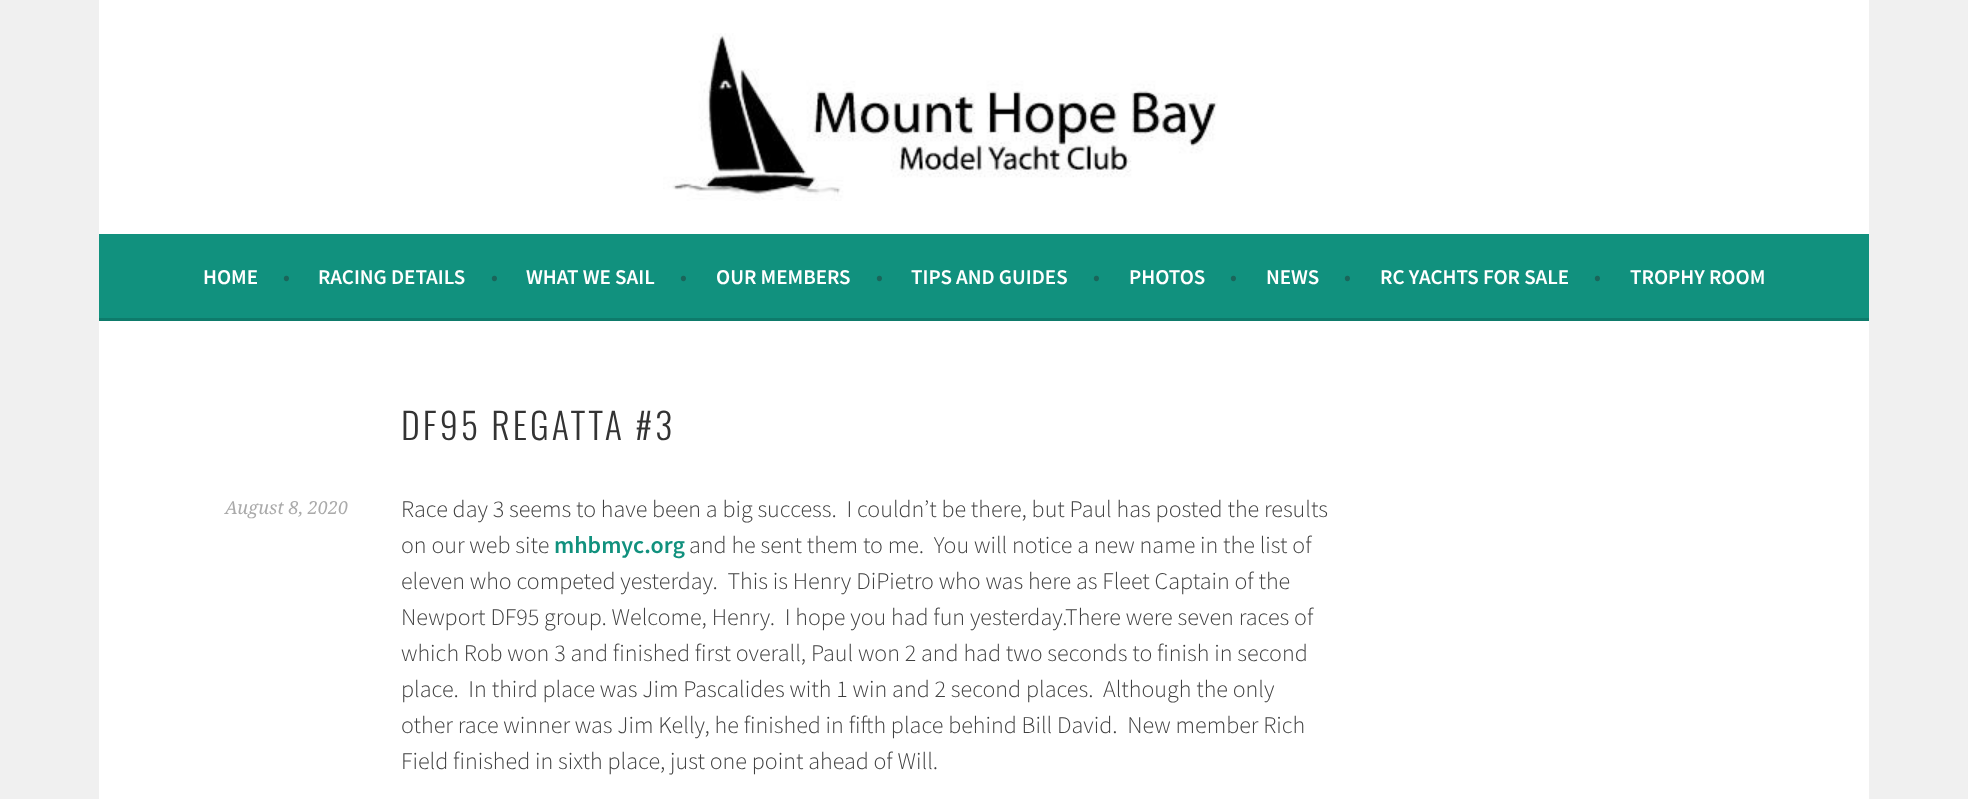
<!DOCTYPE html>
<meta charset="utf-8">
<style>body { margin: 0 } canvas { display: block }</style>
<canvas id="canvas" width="1968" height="799"></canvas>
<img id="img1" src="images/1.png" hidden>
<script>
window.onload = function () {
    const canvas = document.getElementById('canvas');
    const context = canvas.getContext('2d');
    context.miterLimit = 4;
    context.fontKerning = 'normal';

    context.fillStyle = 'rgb(240, 240, 240)';
    context.fillRect(0, 0, 1968, 799);
    context.fillStyle = 'rgb(255, 255, 255)';
    context.fillRect(99, 0, 1770, 234);
    context.drawImage(document.getElementById('img1'), 663, 33, 555, 168);
    context.fillStyle = 'rgb(17, 145, 126)';
    context.fillRect(99, 234, 1770, 84);
    context.fillStyle = 'rgb(14, 123, 107)';
    context.fillRect(99, 318, 1770, 3);
    context.fillStyle = 'rgb(255, 255, 255)';
    context.fillRect(99, 321, 1770, 478);
    context.font = '600 21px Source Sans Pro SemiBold';
    context.fillText('HOME', 203, 284);
    context.fillStyle = 'rgb(26, 101, 90)';
    context.fillText('•', 283, 284);
    context.fillStyle = 'rgb(255, 255, 255)';
    context.fillText('RACING DETAILS', 318, 284);
    context.fillStyle = 'rgb(26, 101, 90)';
    context.fillText('•', 491, 284);
    context.fillStyle = 'rgb(255, 255, 255)';
    context.fillText('WHAT WE SAIL', 526, 284);
    context.fillStyle = 'rgb(26, 101, 90)';
    context.fillText('•', 680, 284);
    context.fillStyle = 'rgb(255, 255, 255)';
    context.fillText('OUR MEMBERS', 716, 284);
    context.fillStyle = 'rgb(26, 101, 90)';
    context.fillText('•', 876, 284);
    context.fillStyle = 'rgb(255, 255, 255)';
    context.fillText('TIPS AND GUIDES', 911, 284);
    context.fillStyle = 'rgb(26, 101, 90)';
    context.fillText('•', 1093, 284);
    context.fillStyle = 'rgb(255, 255, 255)';
    context.fillText('PHOTOS', 1129, 284);
    context.fillStyle = 'rgb(26, 101, 90)';
    context.fillText('•', 1230, 284);
    context.fillStyle = 'rgb(255, 255, 255)';
    context.fillText('NEWS', 1266, 284);
    context.fillStyle = 'rgb(26, 101, 90)';
    context.fillText('•', 1344, 284);
    context.fillStyle = 'rgb(255, 255, 255)';
    context.fillText('RC YACHTS FOR SALE', 1380, 284);
    context.fillStyle = 'rgb(26, 101, 90)';
    context.fillText('•', 1594, 284);
    context.fillStyle = 'rgb(255, 255, 255)';
    context.fillText('TROPHY ROOM', 1630, 284);
    context.letterSpacing = '3px';
    context.font = '300 36px Oswald';
    context.fillStyle = 'rgb(51, 51, 51)';
    context.fillText('DF95 REGATTA #3', 401, 440);
    context.letterSpacing = '0px';
    context.font = 'italic 18px Droid Serif';
    context.fillStyle = 'rgb(170, 170, 170)';
    context.fillText('August 8, 2020', 225, 514);
    context.font = '300 24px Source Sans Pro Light';
    context.fillStyle = 'rgb(64, 64, 64)';
    context.fillText('Race day 3 seems to have been a big success.  I couldn’t be there, but Paul has posted the results', 401, 517);
    context.fillText('on our web site', 401, 553);
    context.font = '600 24px Source Sans Pro SemiBold';
    context.fillStyle = 'rgb(17, 145, 126)';
    context.fillText('mhbmyc.org', 554, 553);
    context.font = '300 24px Source Sans Pro Light';
    context.fillStyle = 'rgb(64, 64, 64)';
    context.fillText('and he sent them to me.  You will notice a new name in the list of', 689, 553);
    context.fillText('eleven who competed yesterday.  This is Henry DiPietro who was here as Fleet Captain of the', 401, 589);
    context.fillText('Newport DF95 group. Welcome, Henry.  I hope you had fun yesterday.There were seven races of', 401, 625);
    context.fillText('which Rob won 3 and finished first overall, Paul won 2 and had two seconds to finish in second', 401, 661);
    context.fillText('place.  In third place was Jim Pascalides with 1 win and 2 second places.  Although the only', 401, 697);
    context.fillText('other race winner was Jim Kelly, he finished in fifth place behind Bill David.  New member Rich', 401, 733);
    context.fillText('Field finished in sixth place, just one point ahead of Will.', 401, 769);
};
</script>
